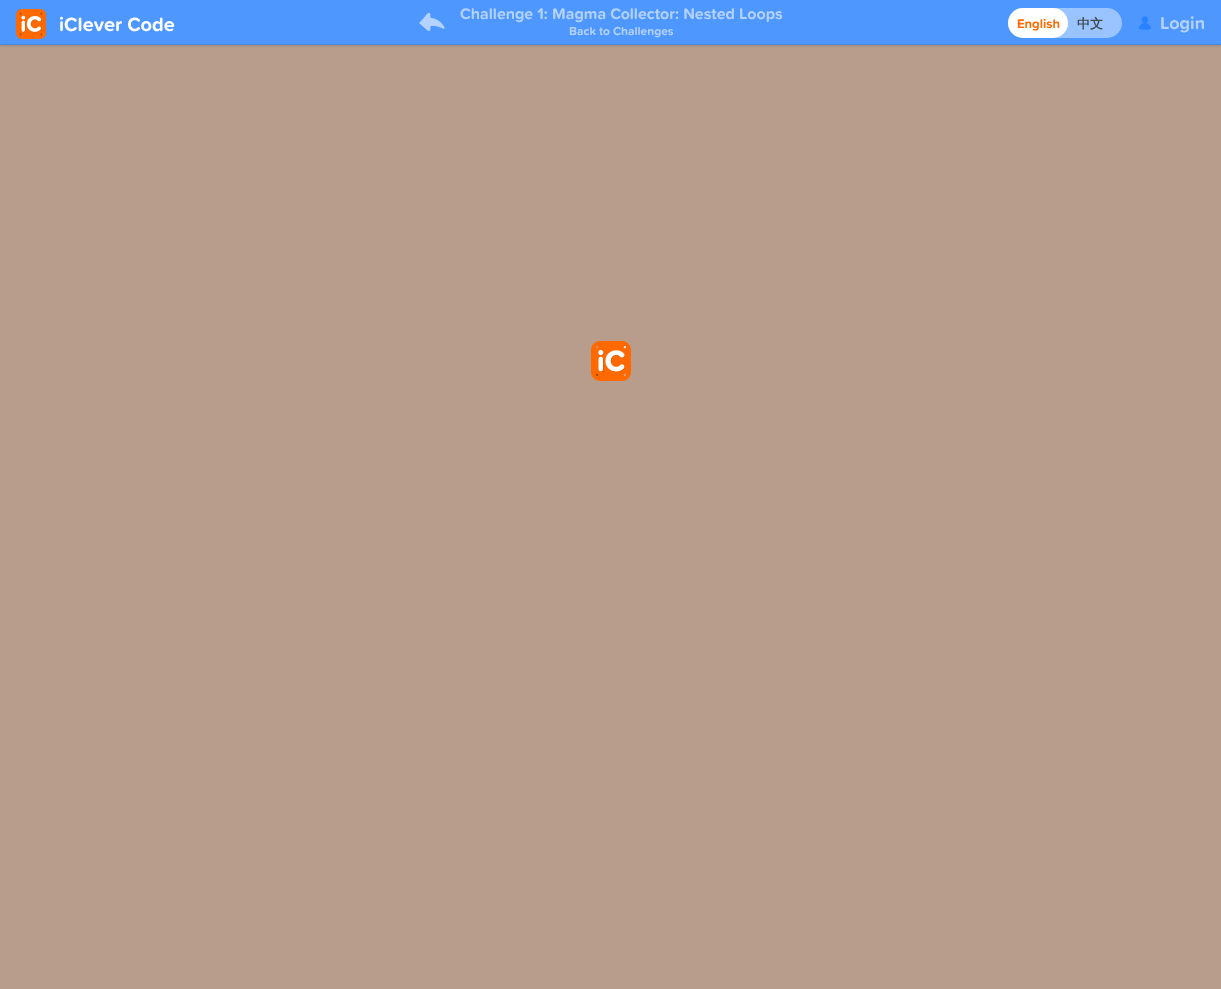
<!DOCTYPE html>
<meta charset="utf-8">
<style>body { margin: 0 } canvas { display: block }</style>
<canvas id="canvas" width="1221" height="989"></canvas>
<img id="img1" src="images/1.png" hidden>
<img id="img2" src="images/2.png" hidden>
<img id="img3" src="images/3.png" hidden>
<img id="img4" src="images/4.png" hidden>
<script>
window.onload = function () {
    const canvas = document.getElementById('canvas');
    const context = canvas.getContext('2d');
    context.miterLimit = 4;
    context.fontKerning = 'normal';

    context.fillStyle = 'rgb(184, 157, 141)';
    context.fillRect(0, 0, 1221, 989);
    context.fillStyle = 'rgba(0, 0, 0, 0.25)';
    context.filter = 'blur(1.5px)';
    context.beginPath();
    context.rect(0, 0, 1221, 45);
    context.fill();
    context.filter = 'none';
    context.fillStyle = 'rgb(77, 151, 255)';
    context.fillRect(0, 0, 1221, 44);
    context.fillStyle = 'rgb(69, 136, 230)';
    context.fillRect(0, 44, 1221, 1);
    context.drawImage(document.getElementById('img1'), 16, 9, 30, 30);
    context.drawImage(document.getElementById('img2'), 419, 12, 26, 19);
    context.fillStyle = 'rgb(153, 196, 255)';
    context.beginPath();
    context.roundRect(1008, 8, 114, 30, 15);
    context.fill();
    context.fillStyle = 'rgb(255, 255, 255)';
    context.beginPath();
    context.roundRect(1008, 8, 60, 30, 15);
    context.fill();
    context.drawImage(document.getElementById('img3'), 1139, 16, 12, 14);
    context.drawImage(document.getElementById('img4'), 591, 341, 40, 40);
    context.font = 'bold 20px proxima';
    context.fillText('iClever Code', 59, 31);
    context.font = 'bold 16px proxima';
    context.fillStyle = 'rgb(179, 210, 255)';
    context.fillText('Challenge 1: Magma Collector: Nested Loops', 460, 19);
    context.font = 'bold 12px proxima';
    context.fillText('Back to Challenges', 569, 35);
    context.font = 'bold 13px proxima';
    context.fillStyle = 'rgb(255, 107, 0)';
    context.fillText('English', 1017, 28);
    context.font = 'bold 13px WenQuanYi Zen Hei';
    context.fillStyle = 'rgb(65, 74, 81)';
    context.fillText('中文', 1077, 28);
    context.font = 'bold 18px proxima';
    context.fillStyle = 'rgb(179, 210, 255)';
    context.fillText('Login', 1160, 29);
};
</script>
